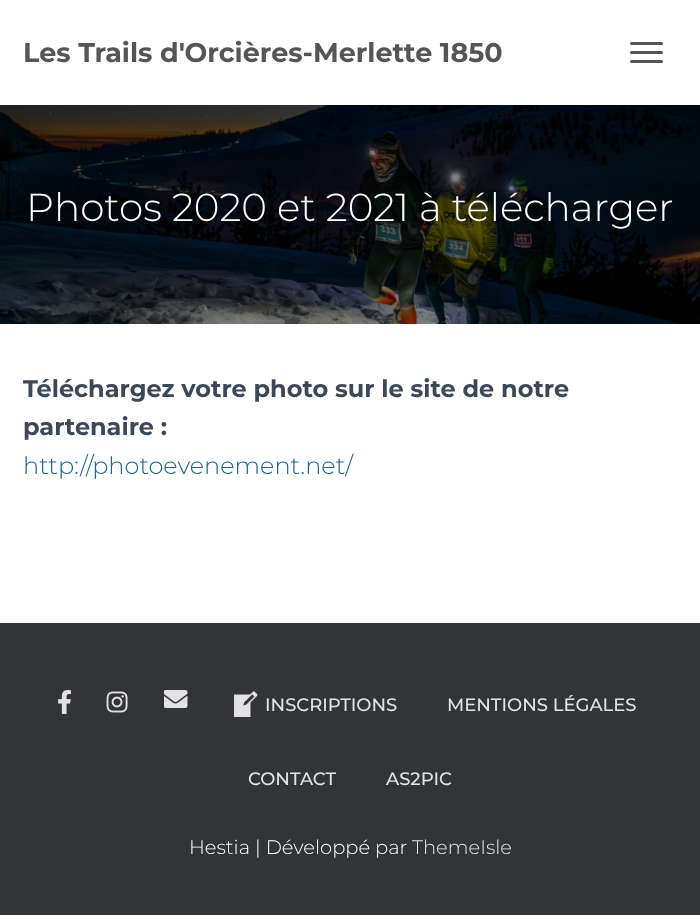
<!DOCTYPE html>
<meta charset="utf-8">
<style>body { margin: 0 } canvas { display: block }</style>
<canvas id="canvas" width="700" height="915"></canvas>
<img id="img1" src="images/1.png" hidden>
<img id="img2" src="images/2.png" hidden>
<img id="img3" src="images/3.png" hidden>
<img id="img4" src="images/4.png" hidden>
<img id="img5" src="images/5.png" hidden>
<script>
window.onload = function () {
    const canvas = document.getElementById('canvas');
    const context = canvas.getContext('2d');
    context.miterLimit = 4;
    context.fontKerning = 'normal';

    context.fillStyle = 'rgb(50, 52, 55)';
    context.fillRect(0, 0, 700, 915);
    context.fillStyle = 'rgb(255, 255, 255)';
    context.fillRect(0, 0, 700, 105);
    context.fillStyle = 'rgb(85, 85, 85)';
    context.beginPath();
    context.roundRect(630, 42, 33, 3, 1.5);
    context.fill();
    context.beginPath();
    context.roundRect(630, 51, 33, 3, 1.5);
    context.fill();
    context.beginPath();
    context.roundRect(630, 60, 33, 3, 1.5);
    context.fill();
    context.drawImage(document.getElementById('img1'), 0, 105, 700, 219);
    context.fillStyle = 'rgb(255, 255, 255)';
    context.fillRect(0, 324, 700, 299);
    context.drawImage(document.getElementById('img2'), 58, 690, 13, 24);
    context.drawImage(document.getElementById('img3'), 106, 691, 22, 22);
    context.drawImage(document.getElementById('img4'), 164, 690, 24, 18);
    context.drawImage(document.getElementById('img5'), 234, 691, 24, 26);
    context.font = 'bold 27px Montserrat';
    context.fillStyle = 'rgb(85, 85, 85)';
    context.fillText('Les Trails d\'Orcières-Merlette 1850', 23, 62);
    context.font = '300 39px Montserrat';
    context.fillStyle = 'rgb(255, 255, 255)';
    context.fillText('Photos 2020 et 2021 à télécharger', 26, 221);
    context.font = 'bold 24px Montserrat';
    context.fillStyle = 'rgb(60, 72, 88)';
    context.fillText('Téléchargez votre photo sur le site de notre', 23, 397);
    context.fillText('partenaire :', 23, 435);
    context.font = '300 24px Montserrat';
    context.fillStyle = 'rgb(32, 104, 140)';
    context.fillText('http://photoevenement.net/', 23, 474);
    context.font = '500 18px Montserrat';
    context.fillStyle = 'rgb(226, 227, 227)';
    context.fillText('INSCRIPTIONS', 265, 711);
    context.fillText('MENTIONS LÉGALES', 447, 711);
    context.fillText('CONTACT', 248, 785);
    context.fillText('AS2PIC', 386, 785);
    context.font = '300 19.5px Montserrat';
    context.fillStyle = 'rgb(255, 255, 255)';
    context.fillText('Hestia | Développé par', 189, 854);
    context.fillStyle = 'rgb(226, 227, 227)';
    context.fillText('ThemeIsle', 412, 854);
};
</script>
